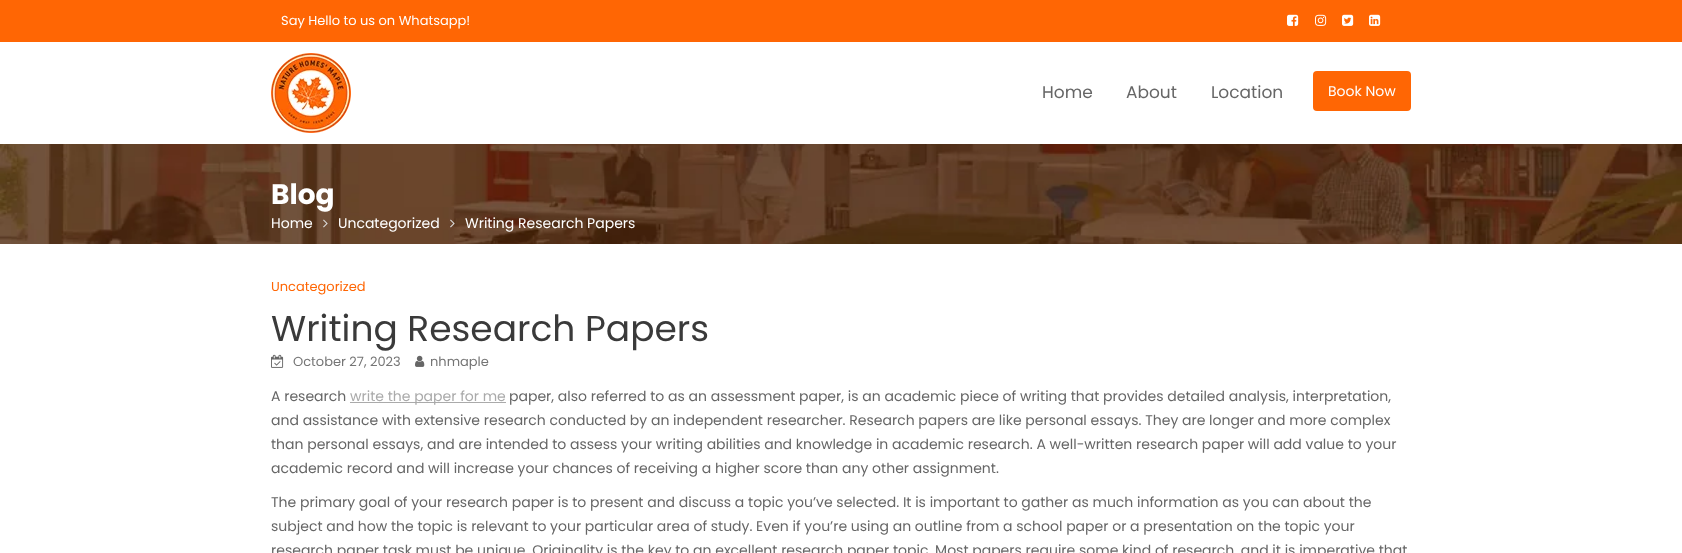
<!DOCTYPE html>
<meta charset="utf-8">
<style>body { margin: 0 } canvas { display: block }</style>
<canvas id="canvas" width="1682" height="553"></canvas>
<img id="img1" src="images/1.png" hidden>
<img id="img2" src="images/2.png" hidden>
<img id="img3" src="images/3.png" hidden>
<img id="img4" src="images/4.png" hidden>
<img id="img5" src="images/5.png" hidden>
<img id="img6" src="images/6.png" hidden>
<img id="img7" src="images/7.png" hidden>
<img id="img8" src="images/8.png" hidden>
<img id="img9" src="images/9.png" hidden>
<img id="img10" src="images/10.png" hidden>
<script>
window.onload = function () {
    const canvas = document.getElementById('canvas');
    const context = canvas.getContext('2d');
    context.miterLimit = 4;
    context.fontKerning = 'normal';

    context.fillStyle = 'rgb(255, 255, 255)';
    context.fillRect(0, 0, 1682, 553);
    context.fillStyle = 'rgb(255, 102, 4)';
    context.fillRect(0, 0, 1682, 42);
    context.drawImage(document.getElementById('img1'), 1287, 14, 12, 12);
    context.drawImage(document.getElementById('img2'), 1315, 14, 12, 12);
    context.drawImage(document.getElementById('img3'), 1342, 14, 12, 12);
    context.drawImage(document.getElementById('img4'), 1369, 14, 12, 12);
    context.drawImage(document.getElementById('img5'), 271, 53, 80, 80);
    context.beginPath();
    context.roundRect(1313, 71, 98, 40, 4);
    context.fill();
    context.drawImage(document.getElementById('img6'), 0, 144, 1682, 100);
    context.drawImage(document.getElementById('img7'), 323, 219, 5, 9);
    context.drawImage(document.getElementById('img8'), 450, 219, 5, 9);
    context.drawImage(document.getElementById('img9'), 271, 354, 13, 14);
    context.drawImage(document.getElementById('img10'), 415, 355, 10, 12);
    context.fillStyle = 'rgb(170, 170, 170)';
    context.fillRect(350, 402, 156, 1);
    context.font = '13px Poppins';
    context.fillStyle = 'rgb(255, 255, 255)';
    context.fillText('Say Hello to us on Whatsapp!', 281, 25);
    context.font = '17px Poppins';
    context.fillStyle = 'rgb(102, 102, 102)';
    context.fillText('Home', 1042, 98);
    context.fillText('About', 1126, 98);
    context.fillText('Location', 1211, 98);
    context.font = '14px Poppins';
    context.fillStyle = 'rgb(255, 255, 255)';
    context.fillText('Book Now', 1328, 96);
    context.font = 'bold 28px Poppins';
    context.fillText('Blog', 271, 204);
    context.font = '14px Poppins';
    context.fillText('Home', 271, 228);
    context.fillText('Uncategorized', 338, 228);
    context.fillText('Writing Research Papers', 465, 228);
    context.font = '13px Poppins';
    context.fillStyle = 'rgb(255, 102, 4)';
    context.fillText('Uncategorized', 271, 291);
    context.font = '36px Poppins';
    context.fillStyle = 'rgb(58, 58, 58)';
    context.fillText('Writing Research Papers', 271, 341);
    context.font = '13px Poppins';
    context.fillStyle = 'rgb(117, 117, 117)';
    context.fillText('October 27, 2023', 293, 366);
    context.fillText('nhmaple', 430, 366);
    context.font = '14px Poppins';
    context.fillStyle = 'rgb(102, 102, 102)';
    context.fillText('A research', 271, 401);
    context.fillStyle = 'rgb(170, 170, 170)';
    context.fillText('write the paper for me', 350, 401);
    context.fillStyle = 'rgb(102, 102, 102)';
    context.fillText('paper, also referred to as an assessment paper, is an academic piece of writing that provides detailed analysis, interpretation,', 509, 401);
    context.fillText('and assistance with extensive research conducted by an independent researcher. Research papers are like personal essays. They are longer and more complex', 271, 425);
    context.fillText('than personal essays, and are intended to assess your writing abilities and knowledge in academic research. A well-written research paper will add value to your', 271, 449);
    context.fillText('academic record and will increase your chances of receiving a higher score than any other assignment.', 271, 473);
    context.fillText('The primary goal of your research paper is to present and discuss a topic you’ve selected. It is important to gather as much information as you can about the', 271, 507);
    context.fillText('subject and how the topic is relevant to your particular area of study. Even if you’re using an outline from a school paper or a presentation on the topic your', 271, 531);
    context.fillText('research paper task must be unique. Originality is the key to an excellent research paper topic. Most papers require some kind of research, and it is imperative that', 271, 555);
};
</script>
